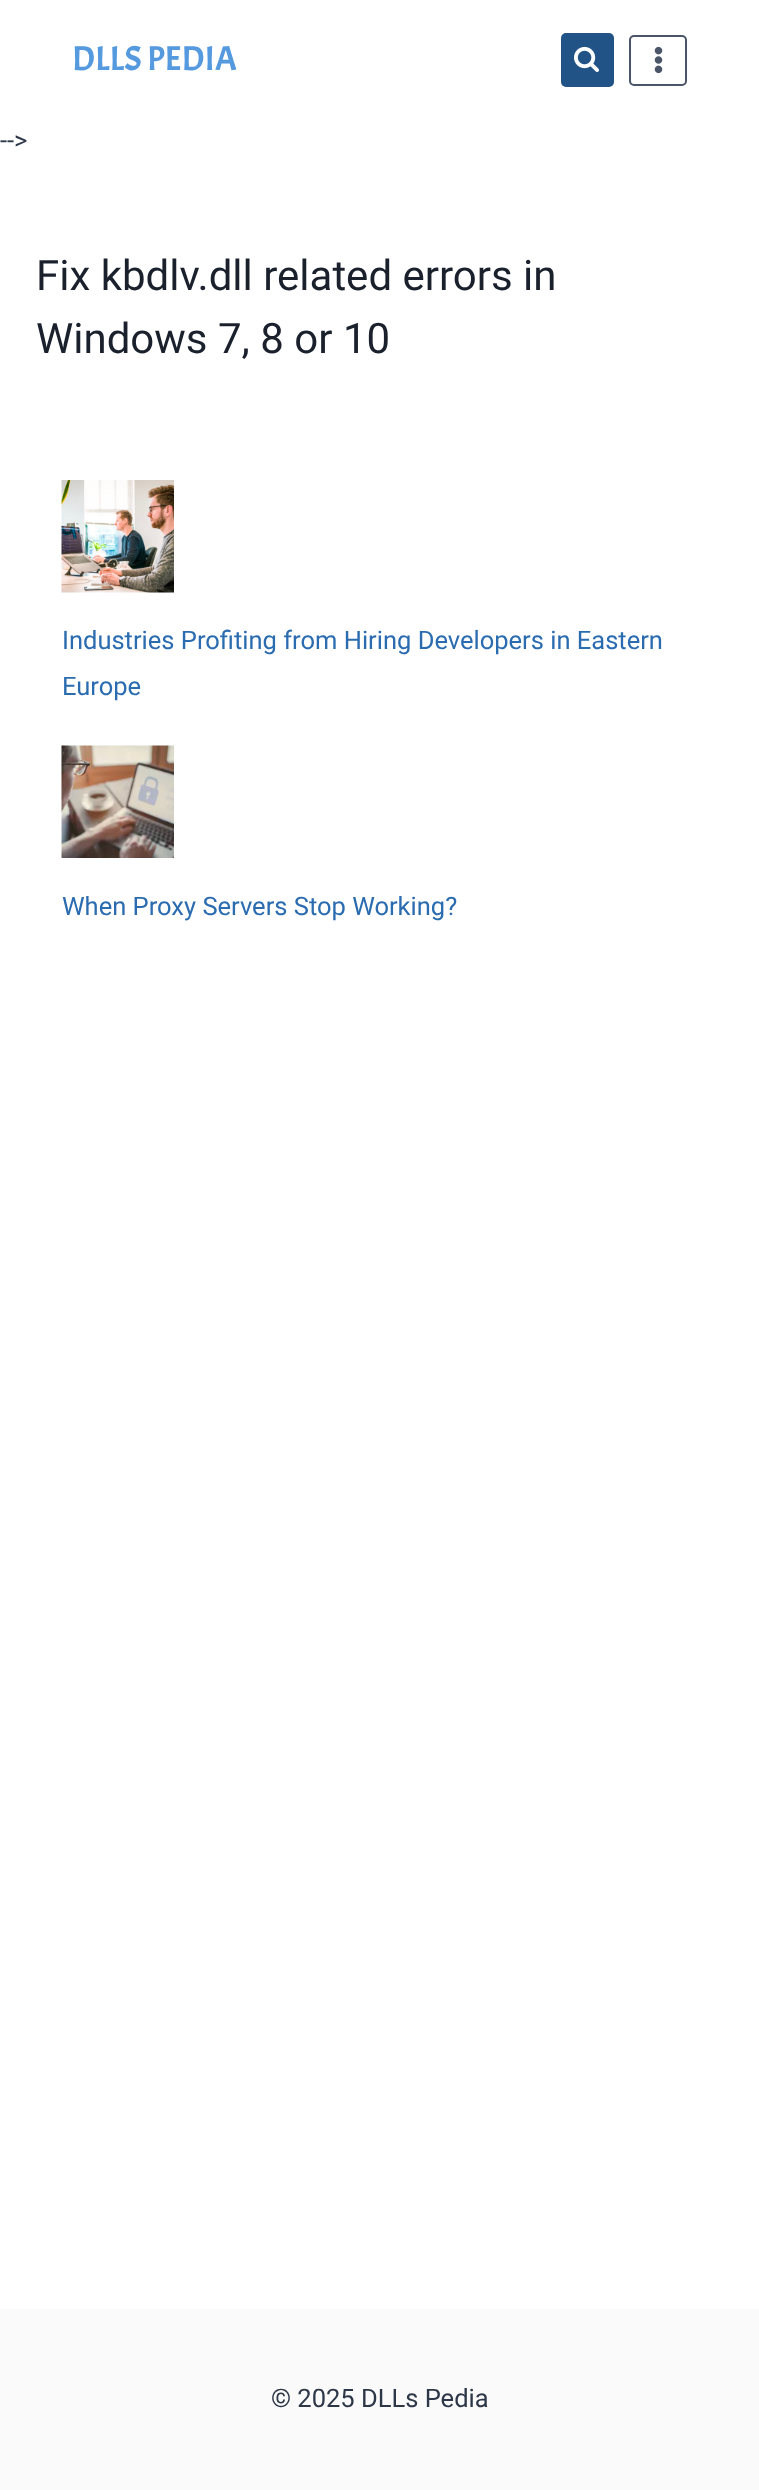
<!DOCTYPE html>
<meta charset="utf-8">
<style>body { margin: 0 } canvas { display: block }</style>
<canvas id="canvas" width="759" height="2490"></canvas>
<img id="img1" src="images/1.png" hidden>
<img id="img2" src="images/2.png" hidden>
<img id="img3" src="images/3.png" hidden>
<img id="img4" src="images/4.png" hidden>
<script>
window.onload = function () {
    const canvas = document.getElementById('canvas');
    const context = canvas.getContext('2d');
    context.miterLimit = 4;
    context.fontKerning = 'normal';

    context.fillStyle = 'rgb(255, 255, 255)';
    context.fillRect(0, 0, 759, 2490);
    context.fillStyle = 'rgb(33, 83, 135)';
    context.beginPath();
    context.roundRect(561, 33, 53, 54, 5);
    context.fill();
    context.drawImage(document.getElementById('img1'), 574, 46, 25, 26);
    context.beginPath();
    context.roundRect(630, 36, 56, 49, 4);
    context.strokeStyle = 'rgb(74, 85, 104)';
    context.lineWidth = 2;
    context.stroke();
    context.drawImage(document.getElementById('img2'), 654, 46, 9, 28);
    context.drawImage(document.getElementById('img3'), 61, 480, 113, 113);
    context.drawImage(document.getElementById('img4'), 61, 745, 113, 113);
    context.fillStyle = 'rgb(250, 250, 250)';
    context.fillRect(0, 2309, 759, 181);
    context.font = '34.5px Acme';
    context.fillStyle = 'rgb(85, 153, 223)';
    context.fillText('DLLS PEDIA', 72, 70);
    context.font = '25.5px Roboto';
    context.fillStyle = 'rgb(45, 55, 72)';
    context.fillText('-->', 0, 149);
    context.font = '42px Roboto';
    context.fillStyle = 'rgb(26, 32, 44)';
    context.fillText('Fix kbdlv.dll related errors in', 36, 290);
    context.fillText('Windows 7, 8 or 10', 36, 353);
    context.font = '25.5px Roboto';
    context.fillStyle = 'rgb(43, 108, 176)';
    context.fillText('Industries Profiting from Hiring Developers in Eastern', 62, 649);
    context.fillText('Europe', 62, 695);
    context.fillText('When Proxy Servers Stop Working?', 62, 915);
    context.fillStyle = 'rgb(45, 55, 72)';
    context.fillText('© 2025 DLLs Pedia', 271, 2407);
};
</script>
